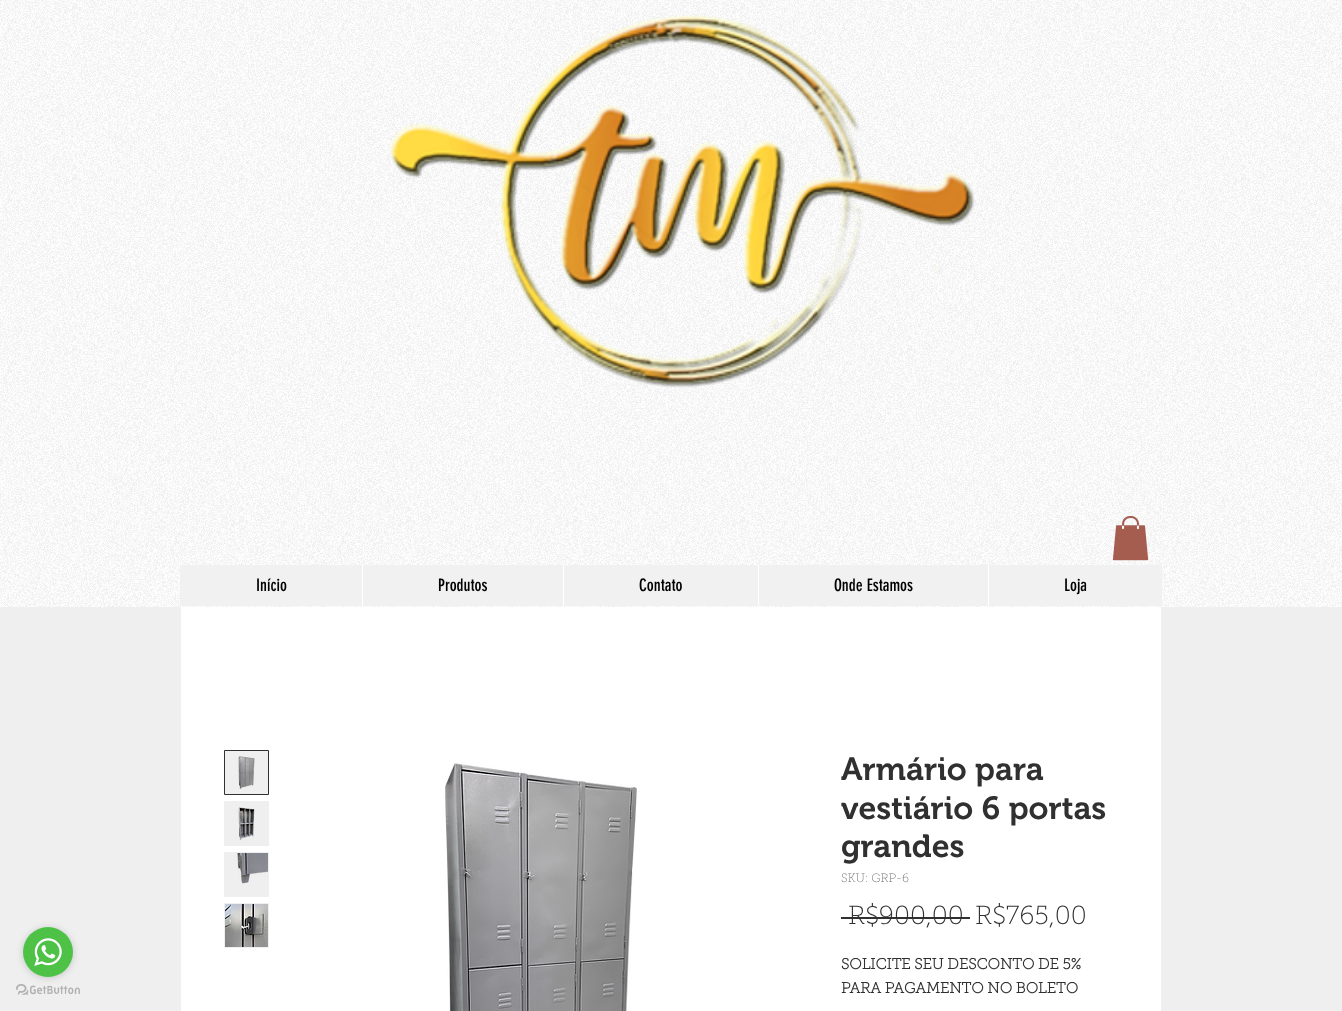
<!DOCTYPE html>
<meta charset="utf-8">
<style>body { margin: 0 } canvas { display: block }</style>
<canvas id="canvas" width="1342" height="1011"></canvas>
<img id="img1" src="images/2.png" hidden>
<img id="img2" src="images/1.png" hidden>
<img id="img3" src="images/3.png" hidden>
<img id="img4" src="images/4.png" hidden>
<img id="img5" src="images/5.png" hidden>
<img id="img6" src="images/6.png" hidden>
<img id="img7" src="images/7.png" hidden>
<img id="img8" src="images/8.png" hidden>
<img id="img9" src="images/9.png" hidden>
<img id="img10" src="images/10.png" hidden>
<script>
window.onload = function () {
    const canvas = document.getElementById('canvas');
    const context = canvas.getContext('2d');
    context.miterLimit = 4;
    context.fontKerning = 'normal';

    context.fillStyle = 'rgb(239, 239, 239)';
    context.fillRect(0, 0, 1342, 1011);
    context.drawImage(document.getElementById('img1'), 16, 984, 64, 11);
    context.fillStyle = 'rgba(136, 136, 136, 0.4)';
    context.filter = 'blur(3.5px)';
    context.beginPath();
    context.roundRect(23, 928, 50, 50, 25);
    context.fill();
    context.filter = 'none';
    context.fillStyle = 'rgb(77, 194, 71)';
    context.beginPath();
    context.arc(48, 952, 25, 0, 2 * Math.PI);
    context.fill();
    context.drawImage(document.getElementById('img2'), 34, 938, 28, 28);
    context.fillStyle = 'rgb(255, 255, 255)';
    context.fillRect(0, 0, 1342, 607);
    context.drawImage(document.getElementById('img3'), 0, 0, 1342, 607);
    context.drawImage(document.getElementById('img4'), 389, 15, 586, 373);
    context.drawImage(document.getElementById('img5'), 1112, 516, 37, 45);
    context.fillStyle = 'rgb(241, 241, 241)';
    context.fillRect(180, 565, 982, 41);
    context.fillStyle = 'rgb(255, 255, 255)';
    context.fillRect(362, 565, 1, 41);
    context.fillRect(563, 565, 1, 41);
    context.fillRect(758, 565, 1, 41);
    context.fillRect(988, 565, 1, 41);
    context.fillRect(181, 607, 980, 404);
    context.fillStyle = 'rgb(239, 239, 239)';
    context.beginPath();
    context.rect(224.5, 750.5, 44, 44);
    context.fill();
    context.strokeStyle = 'rgb(48, 48, 48)';
    context.stroke();
    context.drawImage(document.getElementById('img6'), 238, 756, 17, 33);
    context.fillRect(224, 801, 45, 45);
    context.drawImage(document.getElementById('img7'), 238, 807, 17, 34);
    context.fillRect(224, 852, 45, 45);
    context.drawImage(document.getElementById('img8'), 237, 853, 31, 31);
    context.fillRect(224, 903, 45, 45);
    context.drawImage(document.getElementById('img9'), 225, 904, 43, 43);
    context.drawImage(document.getElementById('img10'), 445, 763, 192, 248);
    context.fillStyle = 'rgb(48, 48, 48)';
    context.fillRect(841, 917, 129, 2);
    context.font = '17px "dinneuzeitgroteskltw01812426"';
    context.fillStyle = 'rgb(0, 0, 0)';
    context.fillText('Início', 256, 591);
    context.fillText('Produtos', 438, 591);
    context.fillText('Contato', 639, 591);
    context.fillText('Onde Estamos', 834, 591);
    context.fillText('Loja', 1064, 591);
    context.font = '600 32px "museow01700"';
    context.fillStyle = 'rgb(48, 48, 48)';
    context.fillText('Armário para', 841, 780);
    context.fillText('vestiário 6 portas', 841, 819);
    context.fillText('grandes', 841, 857);
    context.font = '100 12px "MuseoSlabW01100"';
    context.fillStyle = 'rgb(113, 112, 112)';
    context.fillText('SKU: GRP-6', 841, 882);
    context.font = '100 26px "MuseoSlabW01100"';
    context.fillStyle = 'rgb(48, 48, 48)';
    context.fillText('R$900,00', 848, 924);
    context.fillText('R$765,00', 975, 924);
    context.font = 'bold 15px "MuseoSlabW01100"';
    context.fillText('SOLICITE SEU DESCONTO DE 5%', 841, 969);
    context.fillText('PARA PAGAMENTO NO BOLETO', 841, 993);
};
</script>
